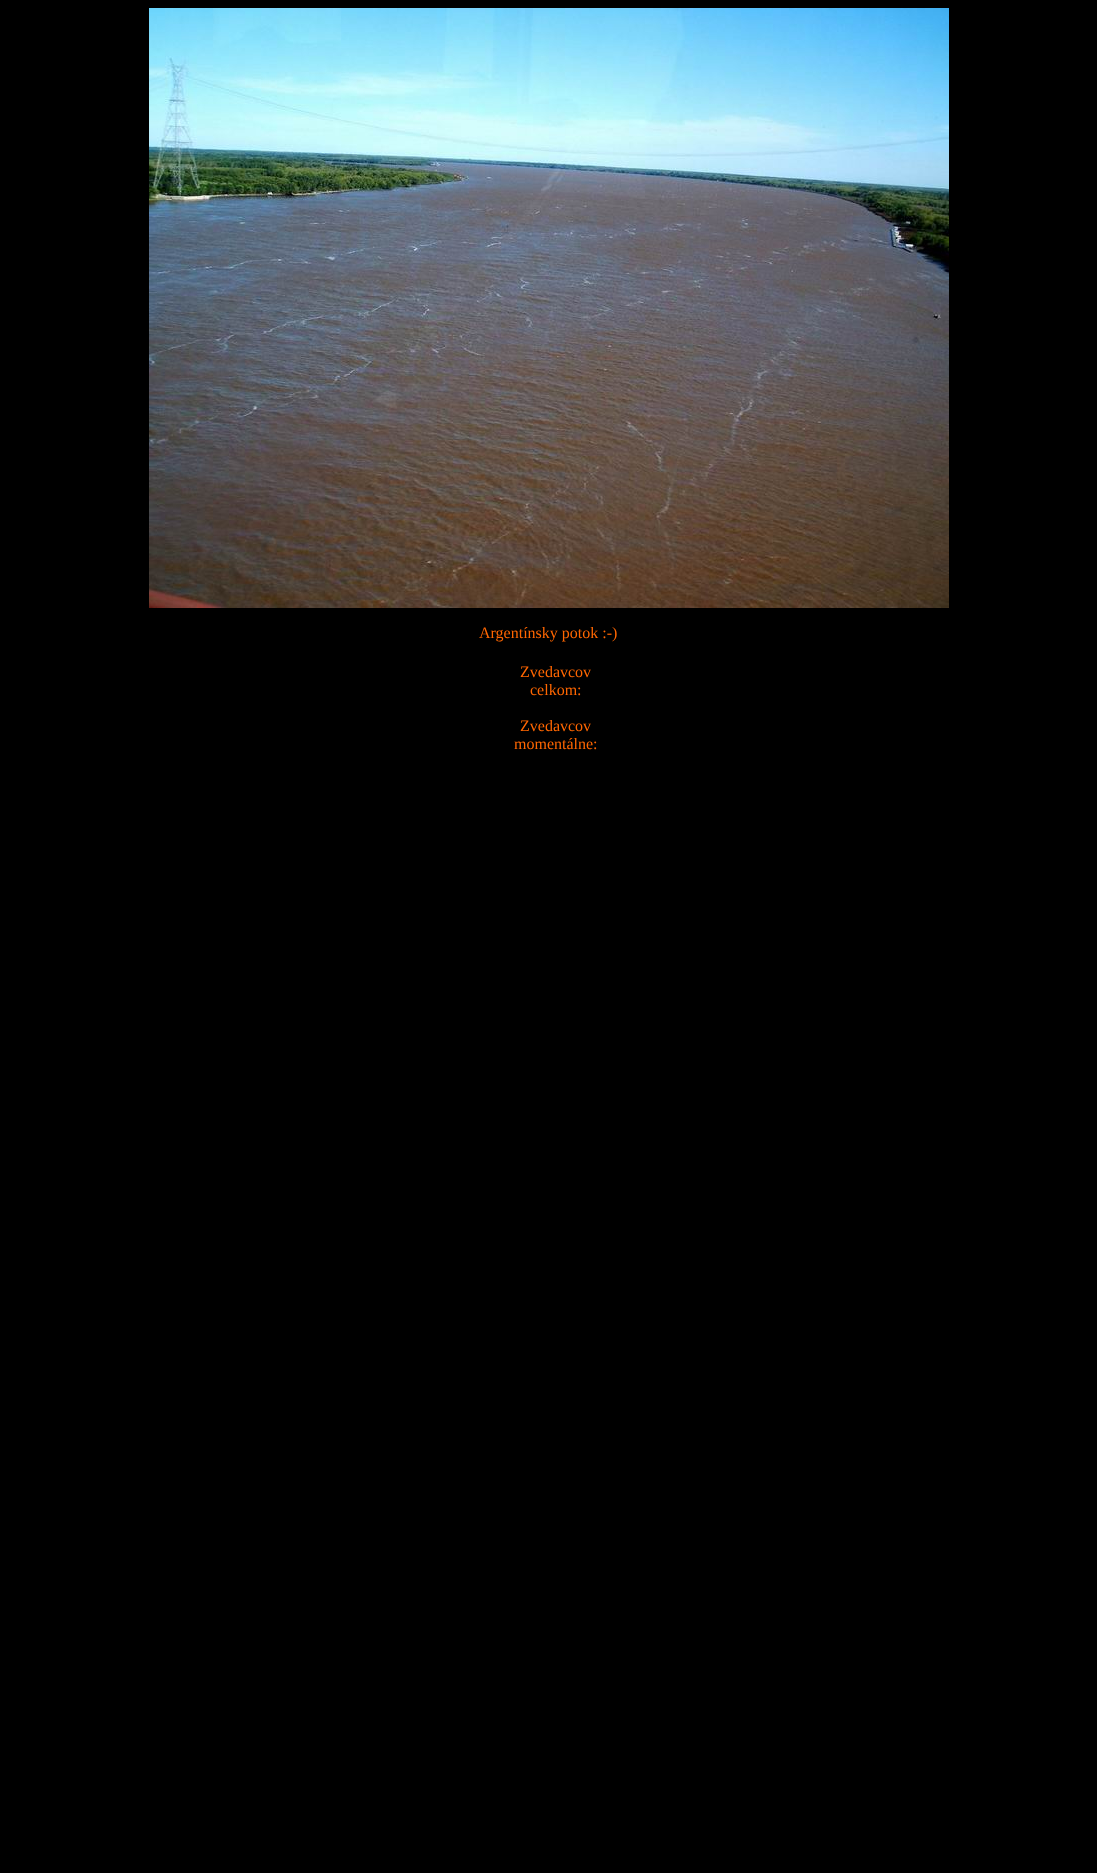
<!DOCTYPE html>
<meta charset="utf-8">
<style>body { margin: 0 } canvas { display: block }</style>
<canvas id="canvas" width="1097" height="1873"></canvas>
<img id="img1" src="images/1.png" hidden>
<script>
window.onload = function () {
    const canvas = document.getElementById('canvas');
    const context = canvas.getContext('2d');
    context.miterLimit = 4;
    context.fontKerning = 'normal';

    context.fillStyle = 'rgb(0, 0, 0)';
    context.fillRect(0, 0, 1097, 1873);
    context.drawImage(document.getElementById('img1'), 149, 8, 800, 600);
    context.font = '16px Liberation Serif';
    context.fillStyle = 'rgb(255, 102, 0)';
    context.fillText('Argentínsky potok :-)', 479, 638);
    context.fillText('Zvedavcov', 520, 677);
    context.fillText('celkom:', 530, 695);
    context.fillText('Zvedavcov', 520, 731);
    context.fillText('momentálne:', 514, 749);
};
</script>
